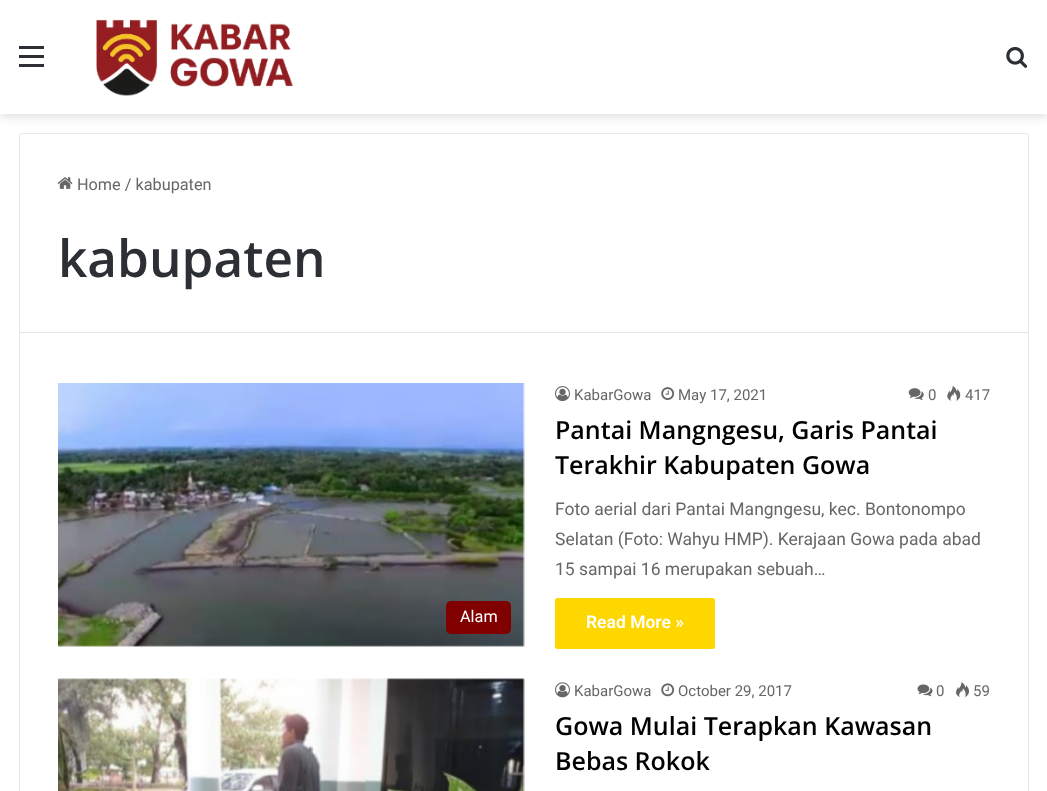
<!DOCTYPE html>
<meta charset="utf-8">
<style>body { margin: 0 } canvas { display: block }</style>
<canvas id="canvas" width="1047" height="791"></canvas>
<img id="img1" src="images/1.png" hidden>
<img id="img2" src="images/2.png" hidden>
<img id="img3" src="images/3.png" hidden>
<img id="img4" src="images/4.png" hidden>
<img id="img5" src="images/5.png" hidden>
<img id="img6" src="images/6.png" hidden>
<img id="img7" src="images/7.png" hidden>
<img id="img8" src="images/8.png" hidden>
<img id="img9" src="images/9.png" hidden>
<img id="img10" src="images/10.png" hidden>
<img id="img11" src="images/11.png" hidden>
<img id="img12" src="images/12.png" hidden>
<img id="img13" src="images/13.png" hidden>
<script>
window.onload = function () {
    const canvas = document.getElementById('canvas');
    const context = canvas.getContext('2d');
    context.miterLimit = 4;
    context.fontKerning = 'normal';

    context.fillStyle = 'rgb(255, 255, 255)';
    context.fillRect(0, 0, 1047, 791);
    context.fillStyle = 'rgba(0, 0, 0, 0.1)';
    context.filter = 'blur(4.5px)';
    context.beginPath();
    context.rect(0, 4, 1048, 114);
    context.fill();
    context.filter = 'none';
    context.fillStyle = 'rgb(255, 255, 255)';
    context.fillRect(0, 0, 1047, 114);
    context.fillStyle = 'rgb(44, 47, 52)';
    context.fillRect(19, 55, 25, 3);
    context.fillRect(19, 46, 25, 3);
    context.fillRect(19, 64, 25, 3);
    context.drawImage(document.getElementById('img1'), 96, 19, 198, 77);
    context.drawImage(document.getElementById('img2'), 1006, 47, 22, 21);
    context.beginPath();
    context.roundRect(19.5, 133.5, 1009, 199, [2, 2, 0, 0]);
    context.strokeStyle = 'rgb(230, 230, 230)';
    context.stroke();
    context.drawImage(document.getElementById('img3'), 57, 177, 16, 12);
    context.fillStyle = 'rgb(230, 230, 230)';
    context.fillRect(1028, 333, 1, 458);
    context.fillRect(19, 333, 1, 458);
    context.drawImage(document.getElementById('img4'), 58, 383, 467, 264);
    context.fillStyle = 'rgb(128, 0, 0)';
    context.beginPath();
    context.roundRect(446, 601, 65, 33, 5);
    context.fill();
    context.drawImage(document.getElementById('img5'), 555, 386, 15, 16);
    context.drawImage(document.getElementById('img6'), 661, 387, 14, 13);
    context.drawImage(document.getElementById('img7'), 908, 388, 16, 12);
    context.drawImage(document.getElementById('img8'), 947, 386, 14, 15);
    context.fillStyle = 'rgb(255, 215, 0)';
    context.beginPath();
    context.roundRect(555, 598, 160, 51, 2.5);
    context.fill();
    context.drawImage(document.getElementById('img9'), 58, 678, 467, 113);
    context.drawImage(document.getElementById('img10'), 555, 682, 15, 16);
    context.drawImage(document.getElementById('img11'), 661, 683, 14, 14);
    context.drawImage(document.getElementById('img12'), 917, 684, 16, 13);
    context.drawImage(document.getElementById('img13'), 956, 682, 13, 15);
    context.font = '16.25px Roboto';
    context.fillStyle = 'rgb(102, 102, 102)';
    context.fillText('Home / kabupaten', 77, 190);
    context.font = '600 51.25px Open Sans';
    context.fillStyle = 'rgb(44, 47, 52)';
    context.fillText('kabupaten', 58, 277);
    context.font = '16.25px Roboto';
    context.fillStyle = 'rgb(255, 255, 255)';
    context.fillText('Alam', 460, 622);
    context.font = '15px Roboto';
    context.fillStyle = 'rgb(102, 102, 102)';
    context.fillText('KabarGowa', 574, 400);
    context.fillText('May 17, 2021', 678, 400);
    context.fillText('0', 928, 400);
    context.fillText('417', 965, 400);
    context.font = '600 25px Open Sans';
    context.fillStyle = 'rgb(0, 0, 0)';
    context.fillText('Pantai Mangngesu, Garis Pantai', 555, 439);
    context.fillText('Terakhir Kabupaten Gowa', 555, 474);
    context.font = '17.5px Roboto';
    context.fillStyle = 'rgb(102, 102, 102)';
    context.fillText('Foto aerial dari Pantai Mangngesu, kec. Bontonompo', 555, 515);
    context.fillText('Selatan (Foto: Wahyu HMP). Kerajaan Gowa pada abad', 555, 545);
    context.fillText('15 sampai 16 merupakan sebuah…', 555, 575);
    context.font = '600 17.5px Roboto';
    context.fillStyle = 'rgb(255, 255, 255)';
    context.fillText('Read More »', 586, 628);
    context.font = '15px Roboto';
    context.fillStyle = 'rgb(102, 102, 102)';
    context.fillText('KabarGowa', 574, 696);
    context.fillText('October 29, 2017', 678, 696);
    context.fillText('0', 936, 696);
    context.fillText('59', 973, 696);
    context.font = '600 25px Open Sans';
    context.fillStyle = 'rgb(0, 0, 0)';
    context.fillText('Gowa Mulai Terapkan Kawasan', 555, 735);
    context.fillText('Bebas Rokok', 555, 770);
};
</script>
